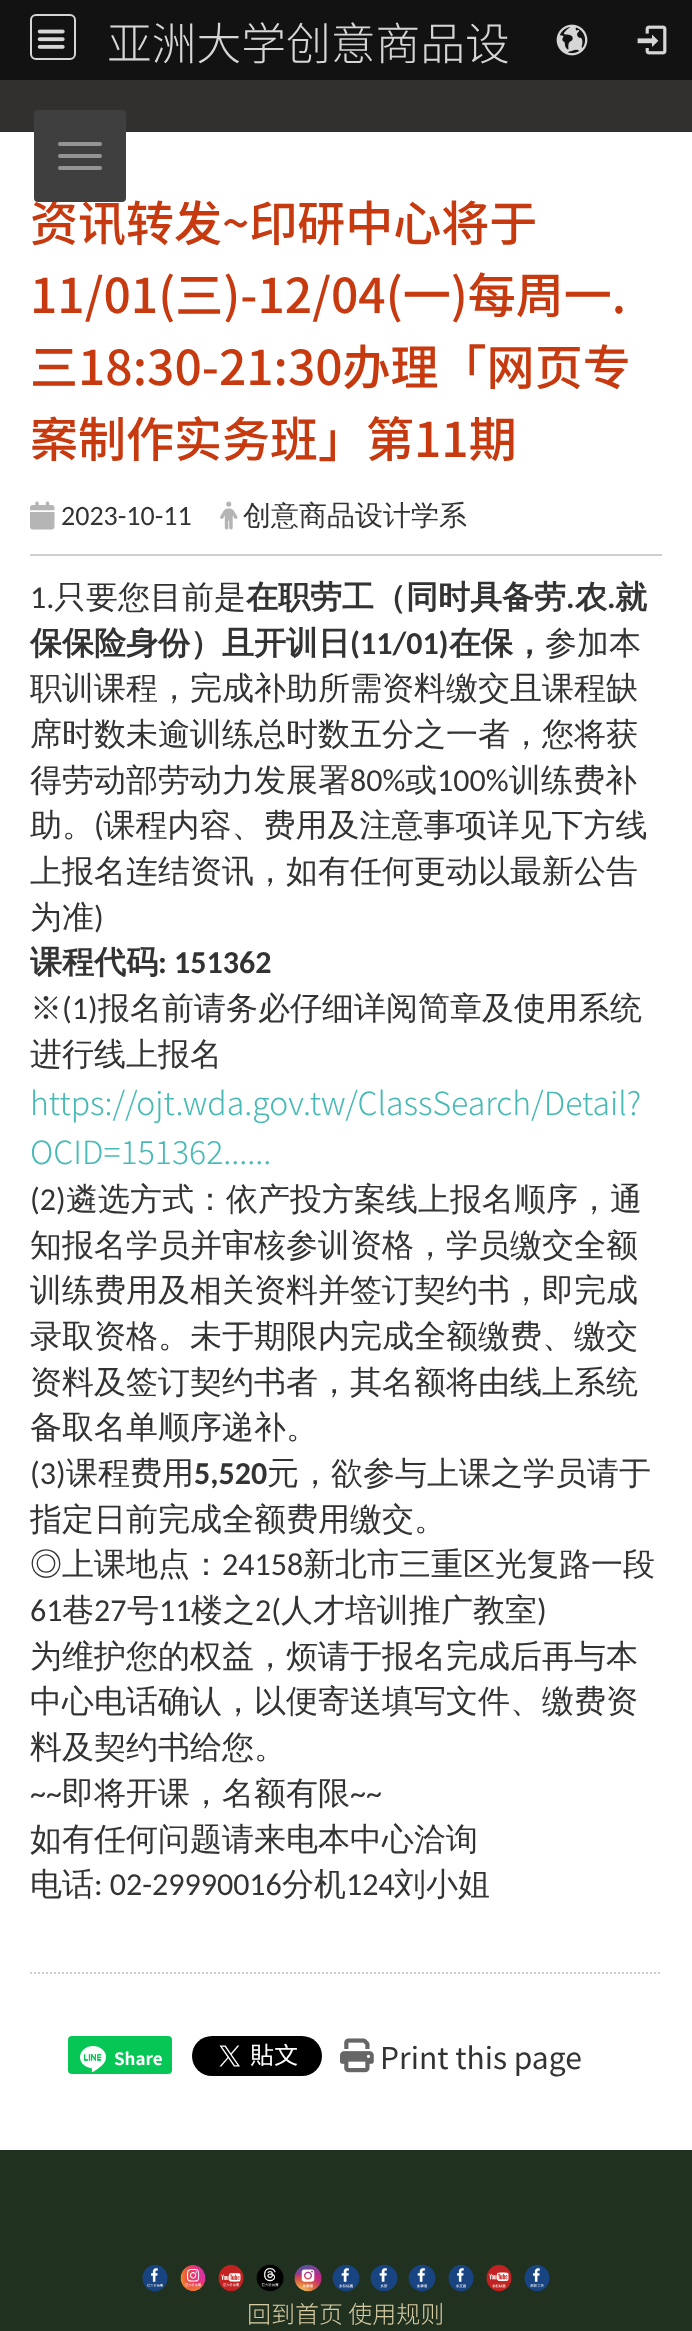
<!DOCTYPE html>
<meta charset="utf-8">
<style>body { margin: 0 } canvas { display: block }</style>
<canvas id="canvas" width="692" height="2331"></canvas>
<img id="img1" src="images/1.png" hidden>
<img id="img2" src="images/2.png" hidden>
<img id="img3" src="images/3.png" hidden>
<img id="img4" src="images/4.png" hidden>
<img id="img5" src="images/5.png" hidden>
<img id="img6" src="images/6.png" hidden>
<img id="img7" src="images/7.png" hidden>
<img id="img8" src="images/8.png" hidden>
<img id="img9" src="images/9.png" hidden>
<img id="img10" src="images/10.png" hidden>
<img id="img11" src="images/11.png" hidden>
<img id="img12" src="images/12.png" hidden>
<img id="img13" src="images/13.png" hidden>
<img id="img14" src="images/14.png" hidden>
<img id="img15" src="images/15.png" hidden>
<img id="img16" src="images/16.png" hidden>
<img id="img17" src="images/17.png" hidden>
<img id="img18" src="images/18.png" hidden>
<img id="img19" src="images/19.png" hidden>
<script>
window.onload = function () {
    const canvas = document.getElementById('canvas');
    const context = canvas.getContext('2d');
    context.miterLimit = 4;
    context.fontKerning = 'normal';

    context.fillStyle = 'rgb(255, 255, 255)';
    context.fillRect(0, 0, 692, 2331);
    context.fillStyle = 'rgb(18, 18, 18)';
    context.fillRect(0, 0, 692, 80);
    context.beginPath();
    context.roundRect(31, 15, 44, 44, 5);
    context.strokeStyle = 'rgb(214, 214, 214)';
    context.lineWidth = 2;
    context.stroke();
    context.drawImage(document.getElementById('img1'), 37, 29, 28, 20);
    context.drawImage(document.getElementById('img2'), 556, 24, 32, 32);
    context.drawImage(document.getElementById('img3'), 637, 25, 30, 30);
    context.fillStyle = 'rgb(49, 48, 46)';
    context.fillRect(0, 80, 692, 52);
    context.fillStyle = 'rgb(206, 206, 206)';
    context.fillRect(30, 554, 632, 2);
    context.drawImage(document.getElementById('img4'), 30, 501, 25, 29);
    context.drawImage(document.getElementById('img5'), 220, 501, 18, 29);
    context.beginPath();
    context.moveTo(30, 1973);
    context.lineTo(662, 1973);
    context.strokeStyle = 'rgb(206, 206, 206)';
    context.setLineDash([2, 2]);
    context.stroke();
    context.fillStyle = 'rgb(6, 199, 85)';
    context.beginPath();
    context.roundRect(68, 2036, 104, 38, 4);
    context.fill();
    context.drawImage(document.getElementById('img6'), 80, 2046, 26, 26);
    context.drawImage(document.getElementById('img7'), 192, 2036, 130, 40);
    context.drawImage(document.getElementById('img8'), 340, 2038, 34, 35);
    context.fillStyle = 'rgb(33, 49, 31)';
    context.fillRect(0, 2150, 692, 181);
    context.drawImage(document.getElementById('img9'), 142, 2264, 26, 28);
    context.drawImage(document.getElementById('img10'), 180, 2264, 26, 28);
    context.drawImage(document.getElementById('img11'), 218, 2264, 26, 28);
    context.drawImage(document.getElementById('img12'), 256, 2264, 28, 28);
    context.drawImage(document.getElementById('img13'), 294, 2264, 28, 28);
    context.drawImage(document.getElementById('img14'), 332, 2264, 28, 28);
    context.drawImage(document.getElementById('img15'), 370, 2264, 28, 28);
    context.drawImage(document.getElementById('img16'), 408, 2264, 28, 28);
    context.drawImage(document.getElementById('img17'), 448, 2264, 26, 28);
    context.drawImage(document.getElementById('img18'), 486, 2264, 26, 28);
    context.drawImage(document.getElementById('img19'), 524, 2264, 26, 28);
    context.font = '300 44.75px Noto Sans CJK TC';
    context.fillStyle = 'rgb(214, 214, 214)';
    context.fillText('亚洲大学创意商品设', 107, 60);
    context.font = '500 48px Noto Sans CJK TC';
    context.fillStyle = 'rgb(199, 58, 15)';
    context.fillText('资讯转发~印研中心将于', 30, 241);
    context.fillStyle = 'rgb(63, 63, 63)';
    context.beginPath();
    context.roundRect(34, 110, 92, 92, 4);
    context.fill();
    context.fillStyle = 'rgb(148, 148, 148)';
    context.beginPath();
    context.roundRect(58, 166, 44, 4, 2);
    context.fill();
    context.beginPath();
    context.roundRect(58, 154, 44, 4, 2);
    context.fill();
    context.beginPath();
    context.roundRect(58, 142, 44, 4, 2);
    context.fill();
    context.fillStyle = 'rgb(199, 58, 15)';
    context.fillText('11/01(三)-12/04(一)每周一.', 30, 313);
    context.fillText('三18:30-21:30办理「网页专', 30, 385);
    context.fillText('案制作实务班」第11期', 30, 457);
    context.font = '28px Carlito';
    context.fillStyle = 'rgb(51, 51, 51)';
    context.fillText('2023-10-11', 61, 525);
    context.font = '500 28px WenQuanYi Zen Hei';
    context.fillText('创意商品设计学系', 243, 525);
    context.font = '32px Carlito';
    context.fillText('1.', 30, 608);
    context.font = '500 32px WenQuanYi Zen Hei';
    context.fillText('只要您目前是', 54, 608);
    context.font = 'bold 32px WenQuanYi Zen Hei';
    context.fillText('在职劳工（同时具备劳', 246, 608);
    context.font = 'bold 32px Carlito';
    context.fillText('.', 566, 608);
    context.font = 'bold 32px WenQuanYi Zen Hei';
    context.fillText('农', 575, 608);
    context.font = 'bold 32px Carlito';
    context.fillText('.', 607, 608);
    context.font = 'bold 32px WenQuanYi Zen Hei';
    context.fillText('就', 615, 608);
    context.fillText('保保险身份）且开训日', 30, 654);
    context.font = 'bold 32px Carlito';
    context.fillText('(11/01)', 350, 654);
    context.font = 'bold 32px WenQuanYi Zen Hei';
    context.fillText('在保，', 449, 654);
    context.font = '500 32px WenQuanYi Zen Hei';
    context.fillText('参加本', 545, 654);
    context.fillText('职训课程，完成补助所需资料缴交且课程缺', 30, 699);
    context.fillText('席时数未逾训练总时数五分之一者，您将获', 30, 745);
    context.fillText('得劳动部劳动力发展署', 30, 791);
    context.font = '32px Carlito';
    context.fillText('80%', 350, 791);
    context.font = '500 32px WenQuanYi Zen Hei';
    context.fillText('或', 405, 791);
    context.font = '32px Carlito';
    context.fillText('100%', 437, 791);
    context.font = '500 32px WenQuanYi Zen Hei';
    context.fillText('训练费补', 509, 791);
    context.fillText('助。 课程内容、费用及注意事项详见下方线', 30, 836);
    context.font = '32px Carlito';
    context.fillText('(', 94, 836);
    context.font = '500 32px WenQuanYi Zen Hei';
    context.fillText('上报名连结资讯，如有任何更动以最新公告', 30, 882);
    context.fillText('为准', 30, 928);
    context.font = '32px Carlito';
    context.fillText(')', 94, 928);
    context.font = 'bold 32px WenQuanYi Zen Hei';
    context.fillText('课程代码', 30, 973);
    context.font = 'bold 32px Carlito';
    context.fillText(': 151362', 158, 973);
    context.font = '500 32px WenQuanYi Zen Hei';
    context.fillText('※', 30, 1019);
    context.font = '32px Carlito';
    context.fillText('(1)', 62, 1019);
    context.font = '500 32px WenQuanYi Zen Hei';
    context.fillText('报名前请务必仔细详阅简章及使用系统', 98, 1019);
    context.fillText('进行线上报名', 30, 1065);
    context.font = '300 32px Noto Sans CJK TC';
    context.fillStyle = 'rgb(71, 186, 181)';
    context.fillText('https://ojt.wda.gov.tw/ClassSearch/Detail?', 30, 1115);
    context.fillText('OCID=151362......', 30, 1164);
    context.font = '32px Carlito';
    context.fillStyle = 'rgb(51, 51, 51)';
    context.fillText('(2)', 30, 1210);
    context.font = '500 32px WenQuanYi Zen Hei';
    context.fillText('遴选方式：依产投方案线上报名顺序，通', 66, 1210);
    context.fillText('知报名学员并审核参训资格，学员缴交全额', 30, 1256);
    context.fillText('训练费用及相关资料并签订契约书，即完成', 30, 1301);
    context.fillText('录取资格。未于期限内完成全额缴费、缴交', 30, 1347);
    context.fillText('资料及签订契约书者，其名额将由线上系统', 30, 1393);
    context.fillText('备取名单顺序递补。', 30, 1438);
    context.font = '32px Carlito';
    context.fillText('(3)', 30, 1484);
    context.font = '500 32px WenQuanYi Zen Hei';
    context.fillText('课程费用', 66, 1484);
    context.font = 'bold 32px Carlito';
    context.fillText('5,520', 194, 1484);
    context.font = '500 32px WenQuanYi Zen Hei';
    context.fillText('元，欲参与上课之学员请于', 267, 1484);
    context.fillText('指定日前完成全额费用缴交。', 30, 1530);
    context.fillText('◎上课地点：', 30, 1575);
    context.font = '32px Carlito';
    context.fillText('24158', 222, 1575);
    context.font = '500 32px WenQuanYi Zen Hei';
    context.fillText('新北市三重区光复路一段', 303, 1575);
    context.font = '32px Carlito';
    context.fillText('61', 30, 1621);
    context.font = '500 32px WenQuanYi Zen Hei';
    context.fillText('巷', 62, 1621);
    context.font = '32px Carlito';
    context.fillText('27', 94, 1621);
    context.font = '500 32px WenQuanYi Zen Hei';
    context.fillText('号', 127, 1621);
    context.font = '32px Carlito';
    context.fillText('11', 159, 1621);
    context.font = '500 32px WenQuanYi Zen Hei';
    context.fillText('楼之', 191, 1621);
    context.font = '32px Carlito';
    context.fillText('2(', 255, 1621);
    context.font = '500 32px WenQuanYi Zen Hei';
    context.fillText('人才培训推广教室', 281, 1621);
    context.font = '32px Carlito';
    context.fillText(')', 537, 1621);
    context.font = '500 32px WenQuanYi Zen Hei';
    context.fillText('为维护您的权益，烦请于报名完成后再与本', 30, 1667);
    context.fillText('中心电话确认，以便寄送填写文件、缴费资', 30, 1712);
    context.fillText('料及契约书给您。', 30, 1758);
    context.font = '32px Carlito';
    context.fillText('~~', 30, 1804);
    context.font = '500 32px WenQuanYi Zen Hei';
    context.fillText('即将开课，名额有限', 62, 1804);
    context.font = '32px Carlito';
    context.fillText('~~', 350, 1804);
    context.font = '500 32px WenQuanYi Zen Hei';
    context.fillText('如有任何问题请来电本中心洽询', 30, 1850);
    context.fillText('电话', 30, 1895);
    context.font = '32px Carlito';
    context.fillText(': 02-29990016', 94, 1895);
    context.font = '500 32px WenQuanYi Zen Hei';
    context.fillText('分机', 282, 1895);
    context.font = '32px Carlito';
    context.fillText('124', 346, 1895);
    context.font = '500 32px WenQuanYi Zen Hei';
    context.fillText('刘小姐', 394, 1895);
    context.font = 'bold 17px Noto Sans CJK TC';
    context.fillStyle = 'rgb(255, 255, 255)';
    context.fillText('Share', 114, 2065);
    context.font = '30px Noto Sans CJK TC';
    context.fillStyle = 'rgb(51, 51, 51)';
    context.fillText('Print this page', 380, 2069);
    context.font = '300 24px Noto Sans CJK TC';
    context.fillStyle = 'rgb(216, 204, 165)';
    context.fillText('回到首页 使用规则', 247, 2323);
};
</script>
